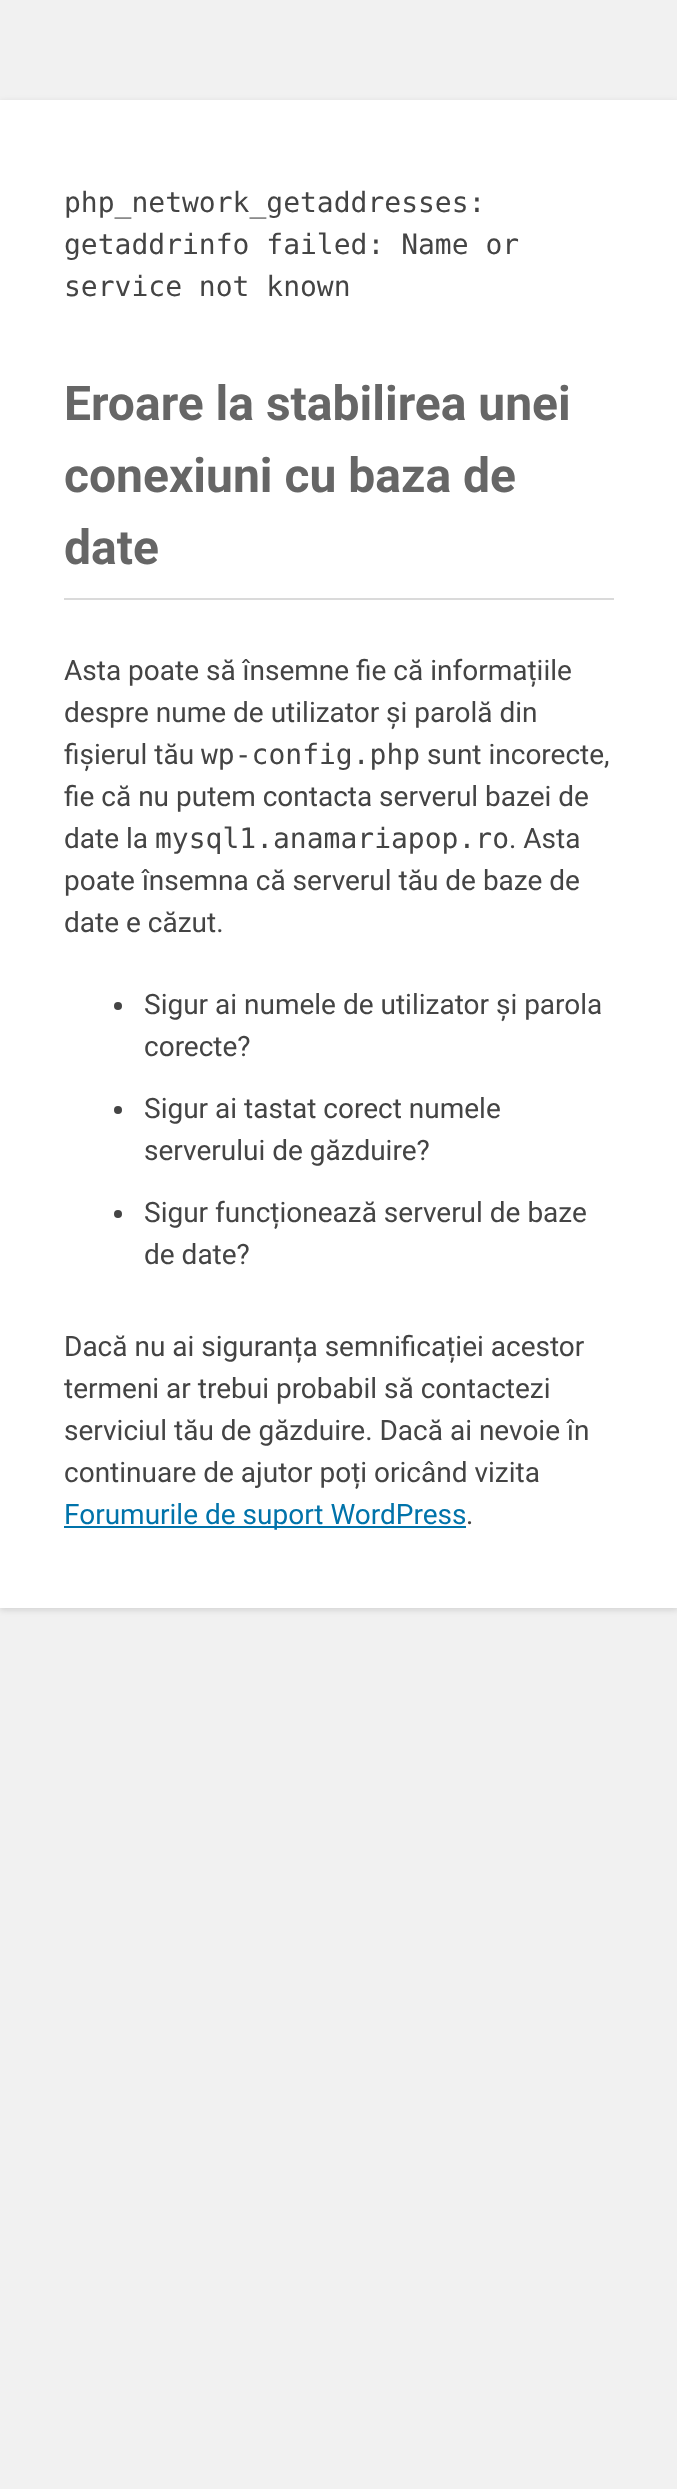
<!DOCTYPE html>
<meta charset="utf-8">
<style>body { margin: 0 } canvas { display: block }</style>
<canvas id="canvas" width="677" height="2489"></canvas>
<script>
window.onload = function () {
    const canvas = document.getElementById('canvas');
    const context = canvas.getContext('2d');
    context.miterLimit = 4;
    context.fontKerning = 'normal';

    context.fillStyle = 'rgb(241, 241, 241)';
    context.fillRect(0, 0, 677, 2489);
    context.fillStyle = 'rgba(0, 0, 0, 0.13)';
    context.filter = 'blur(3px)';
    context.beginPath();
    context.rect(0, 102, 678, 1508);
    context.fill();
    context.filter = 'none';
    context.fillStyle = 'rgb(255, 255, 255)';
    context.fillRect(0, 100, 677, 1508);
    context.fillStyle = 'rgb(218, 218, 218)';
    context.fillRect(64, 598, 550, 2);
    context.fillStyle = 'rgb(68, 68, 68)';
    context.beginPath();
    context.arc(118, 1006, 4, 0, 2 * Math.PI);
    context.fill();
    context.beginPath();
    context.arc(118, 1110, 4, 0, 2 * Math.PI);
    context.fill();
    context.beginPath();
    context.arc(118, 1214, 4, 0, 2 * Math.PI);
    context.fill();
    context.fillStyle = 'rgb(0, 115, 170)';
    context.fillRect(64, 1526, 402, 2);
    context.font = '28px DejaVu Sans Mono';
    context.fillStyle = 'rgb(68, 68, 68)';
    context.fillText('php_network_getaddresses:', 64, 212);
    context.fillText('getaddrinfo failed: Name or', 64, 254);
    context.fillText('service not known', 64, 296);
    context.font = 'bold 48px Roboto';
    context.fillStyle = 'rgb(102, 102, 102)';
    context.fillText('Eroare la stabilirea unei', 64, 420);
    context.fillText('conexiuni cu baza de', 64, 492);
    context.fillText('date', 64, 564);
    context.font = '28px Roboto';
    context.fillStyle = 'rgb(68, 68, 68)';
    context.fillText('Asta poate să însemne fie că informațiile', 64, 680);
    context.fillText('despre nume de utilizator și parolă din', 64, 722);
    context.fillText('fișierul tău', 64, 764);
    context.font = '28px DejaVu Sans Mono';
    context.fillText('wp-config.php', 201, 764);
    context.font = '28px Roboto';
    context.fillText('sunt incorecte,', 427, 764);
    context.fillText('fie că nu putem contacta serverul bazei de', 64, 806);
    context.fillText('date la', 64, 848);
    context.font = '28px DejaVu Sans Mono';
    context.fillText('mysql1.anamariapop.ro', 155, 848);
    context.font = '28px Roboto';
    context.fillText('. Asta', 509, 848);
    context.fillText('poate însemna că serverul tău de baze de', 64, 890);
    context.fillText('date e căzut.', 64, 932);
    context.fillText('Sigur ai numele de utilizator și parola', 144, 1014);
    context.fillText('corecte?', 144, 1056);
    context.fillText('Sigur ai tastat corect numele', 144, 1118);
    context.fillText('serverului de găzduire?', 144, 1160);
    context.fillText('Sigur funcționează serverul de baze', 144, 1222);
    context.fillText('de date?', 144, 1264);
    context.fillText('Dacă nu ai siguranța semnificației acestor', 64, 1356);
    context.fillText('termeni ar trebui probabil să contactezi', 64, 1398);
    context.fillText('serviciul tău de găzduire. Dacă ai nevoie în', 64, 1440);
    context.fillText('continuare de ajutor poți oricând vizita', 64, 1482);
    context.fillStyle = 'rgb(0, 115, 170)';
    context.fillText('Forumurile de suport WordPress', 64, 1524);
    context.fillStyle = 'rgb(68, 68, 68)';
    context.fillText('.', 466, 1524);
};
</script>
